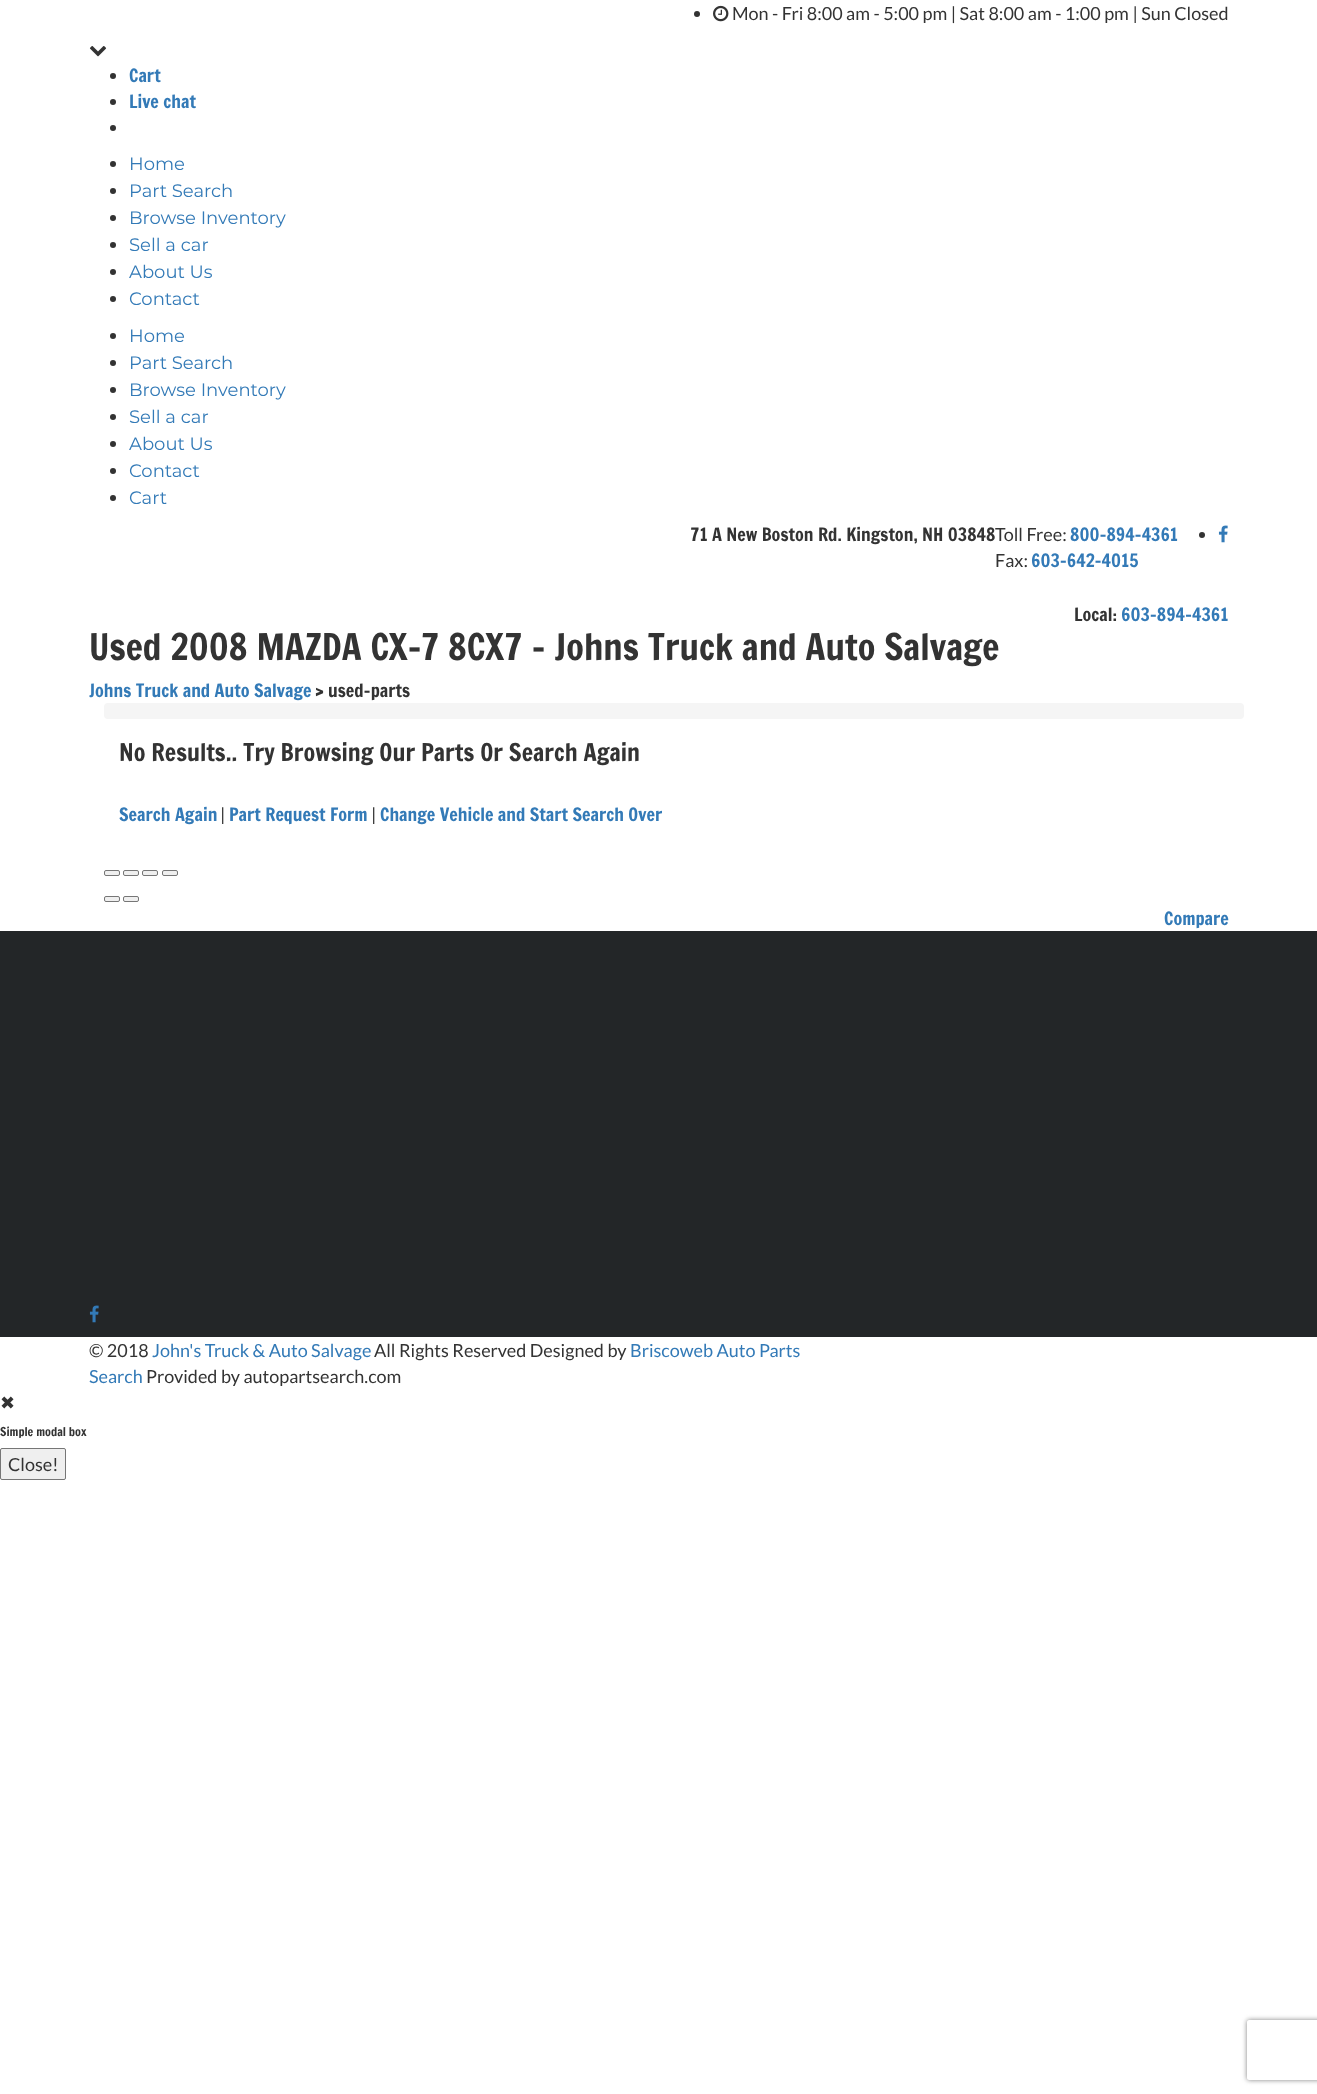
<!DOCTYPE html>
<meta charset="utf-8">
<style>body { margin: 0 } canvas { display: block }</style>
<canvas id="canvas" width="1317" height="2094"></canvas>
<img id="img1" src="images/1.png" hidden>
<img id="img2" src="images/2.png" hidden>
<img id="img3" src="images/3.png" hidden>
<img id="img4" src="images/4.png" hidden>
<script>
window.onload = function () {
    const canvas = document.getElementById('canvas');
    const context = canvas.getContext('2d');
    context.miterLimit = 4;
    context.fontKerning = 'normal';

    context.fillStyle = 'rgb(255, 255, 255)';
    context.fillRect(0, 0, 1317, 2094);
    context.fillStyle = 'rgb(51, 51, 51)';
    context.beginPath();
    context.arc(697, 14, 3, 0, 2 * Math.PI);
    context.fill();
    context.drawImage(document.getElementById('img1'), 713, 5, 16, 17);
    context.drawImage(document.getElementById('img2'), 89, 46, 18, 11);
    context.beginPath();
    context.arc(113, 76, 3, 0, 2 * Math.PI);
    context.fill();
    context.beginPath();
    context.arc(113, 102, 3, 0, 2 * Math.PI);
    context.fill();
    context.beginPath();
    context.arc(113, 128, 3, 0, 2 * Math.PI);
    context.fill();
    context.beginPath();
    context.arc(113, 164, 3, 0, 2 * Math.PI);
    context.fill();
    context.beginPath();
    context.arc(113, 191, 3, 0, 2 * Math.PI);
    context.fill();
    context.beginPath();
    context.arc(113, 218, 3, 0, 2 * Math.PI);
    context.fill();
    context.beginPath();
    context.arc(113, 245, 3, 0, 2 * Math.PI);
    context.fill();
    context.beginPath();
    context.arc(113, 272, 3, 0, 2 * Math.PI);
    context.fill();
    context.beginPath();
    context.arc(113, 299, 3, 0, 2 * Math.PI);
    context.fill();
    context.beginPath();
    context.arc(113, 336, 3, 0, 2 * Math.PI);
    context.fill();
    context.beginPath();
    context.arc(113, 363, 3, 0, 2 * Math.PI);
    context.fill();
    context.beginPath();
    context.arc(113, 390, 3, 0, 2 * Math.PI);
    context.fill();
    context.beginPath();
    context.arc(113, 417, 3, 0, 2 * Math.PI);
    context.fill();
    context.beginPath();
    context.arc(113, 444, 3, 0, 2 * Math.PI);
    context.fill();
    context.beginPath();
    context.arc(113, 471, 3, 0, 2 * Math.PI);
    context.fill();
    context.beginPath();
    context.arc(113, 498, 3, 0, 2 * Math.PI);
    context.fill();
    context.beginPath();
    context.arc(1202, 535, 3, 0, 2 * Math.PI);
    context.fill();
    context.drawImage(document.getElementById('img3'), 1218, 525, 10, 18);
    context.fillStyle = 'rgb(245, 245, 245)';
    context.beginPath();
    context.roundRect(104, 703, 1140, 16, 4);
    context.fill();
    context.fillStyle = 'rgb(239, 239, 239)';
    context.beginPath();
    context.roundRect(104.5, 870.5, 15, 5, 1.5);
    context.fill();
    context.strokeStyle = 'rgb(118, 118, 118)';
    context.stroke();
    context.beginPath();
    context.roundRect(123.5, 870.5, 15, 5, 1.5);
    context.fill();
    context.stroke();
    context.beginPath();
    context.roundRect(142.5, 870.5, 15, 5, 1.5);
    context.fill();
    context.stroke();
    context.beginPath();
    context.roundRect(162.5, 870.5, 15, 5, 1.5);
    context.fill();
    context.stroke();
    context.beginPath();
    context.roundRect(104.5, 896.5, 15, 5, 1.5);
    context.fill();
    context.stroke();
    context.beginPath();
    context.roundRect(123.5, 896.5, 15, 5, 1.5);
    context.fill();
    context.stroke();
    context.fillStyle = 'rgb(35, 38, 40)';
    context.fillRect(0, 931, 1317, 406);
    context.drawImage(document.getElementById('img4'), 89, 1305, 10, 18);
    context.fillStyle = 'rgb(239, 239, 239)';
    context.beginPath();
    context.roundRect(0.5, 1448.5, 65, 31, 1.5);
    context.fill();
    context.stroke();
    context.save();
    context.beginPath();
    context.moveTo(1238, 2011);
    context.lineTo(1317, 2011);
    context.lineTo(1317, 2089);
    context.lineTo(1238, 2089);
    context.closePath();
    context.moveTo(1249, 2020);
    context.lineTo(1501, 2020);
    context.bezierCurveTo(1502, 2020, 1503, 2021, 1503, 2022);
    context.lineTo(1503, 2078);
    context.bezierCurveTo(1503, 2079, 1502, 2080, 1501, 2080);
    context.lineTo(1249, 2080);
    context.bezierCurveTo(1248, 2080, 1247, 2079, 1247, 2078);
    context.lineTo(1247, 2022);
    context.bezierCurveTo(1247, 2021, 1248, 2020, 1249, 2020);
    context.closePath();
    context.clip('evenodd');
    context.fillStyle = 'rgb(128, 128, 128)';
    context.filter = 'blur(2.5px)';
    context.beginPath();
    context.roundRect(1247, 2020, 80, 60, 2);
    context.fill();
    context.filter = 'none';
    context.restore();
    context.font = '18px Lato';
    context.fillStyle = 'rgb(51, 51, 51)';
    context.fillText('Mon - Fri 8:00 am - 5:00 pm | Sat 8:00 am - 1:00 pm | Sun Closed', 732, 20);
    context.font = '18px Francois One';
    context.fillStyle = 'rgb(51, 122, 183)';
    context.fillText('Cart', 129, 82);
    context.fillText('Live chat', 129, 108);
    context.font = '18px Montserrat';
    context.fillText('Home', 129, 170);
    context.fillText('Part Search', 129, 197);
    context.fillText('Browse Inventory', 129, 224);
    context.fillText('Sell a car', 129, 251);
    context.fillText('About Us', 129, 278);
    context.fillText('Contact', 129, 305);
    context.fillText('Home', 129, 342);
    context.fillText('Part Search', 129, 369);
    context.fillText('Browse Inventory', 129, 396);
    context.fillText('Sell a car', 129, 423);
    context.fillText('About Us', 129, 450);
    context.fillText('Contact', 129, 477);
    context.fillText('Cart', 129, 504);
    context.font = '18px Francois One';
    context.fillStyle = 'rgb(51, 51, 51)';
    context.fillText('71 A New Boston Rd. Kingston, NH 03848', 690, 541);
    context.font = '18px Lato';
    context.fillText('Toll Free:', 995, 541);
    context.font = '18px Francois One';
    context.fillStyle = 'rgb(51, 122, 183)';
    context.fillText('800-894-4361', 1070, 541);
    context.font = '18px Lato';
    context.fillStyle = 'rgb(51, 51, 51)';
    context.fillText('Fax:', 995, 567);
    context.font = '18px Francois One';
    context.fillStyle = 'rgb(51, 122, 183)';
    context.fillText('603-642-4015', 1031, 567);
    context.fillStyle = 'rgb(51, 51, 51)';
    context.fillText('Local:', 1074, 621);
    context.fillStyle = 'rgb(51, 122, 183)';
    context.fillText('603-894-4361', 1121, 621);
    context.font = '36px Francois One';
    context.fillStyle = 'rgb(51, 51, 51)';
    context.fillText('Used 2008 MAZDA CX-7 8CX7 - Johns Truck and Auto Salvage', 89, 660);
    context.font = '18px Francois One';
    context.fillStyle = 'rgb(51, 122, 183)';
    context.fillText('Johns Truck and Auto Salvage', 89, 697);
    context.fillStyle = 'rgb(51, 51, 51)';
    context.fillText('> used-parts', 315, 697);
    context.font = '24px Francois One';
    context.fillText('No Results.. Try Browsing Our Parts Or Search Again', 119, 761);
    context.font = '18px Francois One';
    context.fillStyle = 'rgb(51, 122, 183)';
    context.fillText('Search Again', 119, 821);
    context.font = '18px Lato';
    context.fillStyle = 'rgb(51, 51, 51)';
    context.fillText('|', 220, 821);
    context.font = '18px Francois One';
    context.fillStyle = 'rgb(51, 122, 183)';
    context.fillText('Part Request Form', 229, 821);
    context.font = '18px Lato';
    context.fillStyle = 'rgb(51, 51, 51)';
    context.fillText('|', 371, 821);
    context.font = '18px Francois One';
    context.fillStyle = 'rgb(51, 122, 183)';
    context.fillText('Change Vehicle and Start Search Over', 380, 821);
    context.fillText('Compare', 1164, 925);
    context.font = '18px Lato';
    context.fillStyle = 'rgb(51, 51, 51)';
    context.fillText('© 2018', 89, 1357);
    context.fillStyle = 'rgb(51, 122, 183)';
    context.fillText('John\'s Truck & Auto Salvage', 152, 1357);
    context.fillStyle = 'rgb(51, 51, 51)';
    context.fillText('All Rights Reserved Designed by', 374, 1357);
    context.fillStyle = 'rgb(51, 122, 183)';
    context.fillText('Briscoweb Auto Parts', 630, 1357);
    context.fillText('Search', 89, 1383);
    context.fillStyle = 'rgb(51, 51, 51)';
    context.fillText('Provided by autopartsearch.com', 146, 1383);
    context.font = '18px DejaVu Sans';
    context.fillText('✖', 0, 1409);
    context.font = '12px Francois One';
    context.fillText('Simple modal box', 0, 1436);
    context.font = '18px Lato';
    context.fillText('Close!', 8, 1471);
};
</script>
